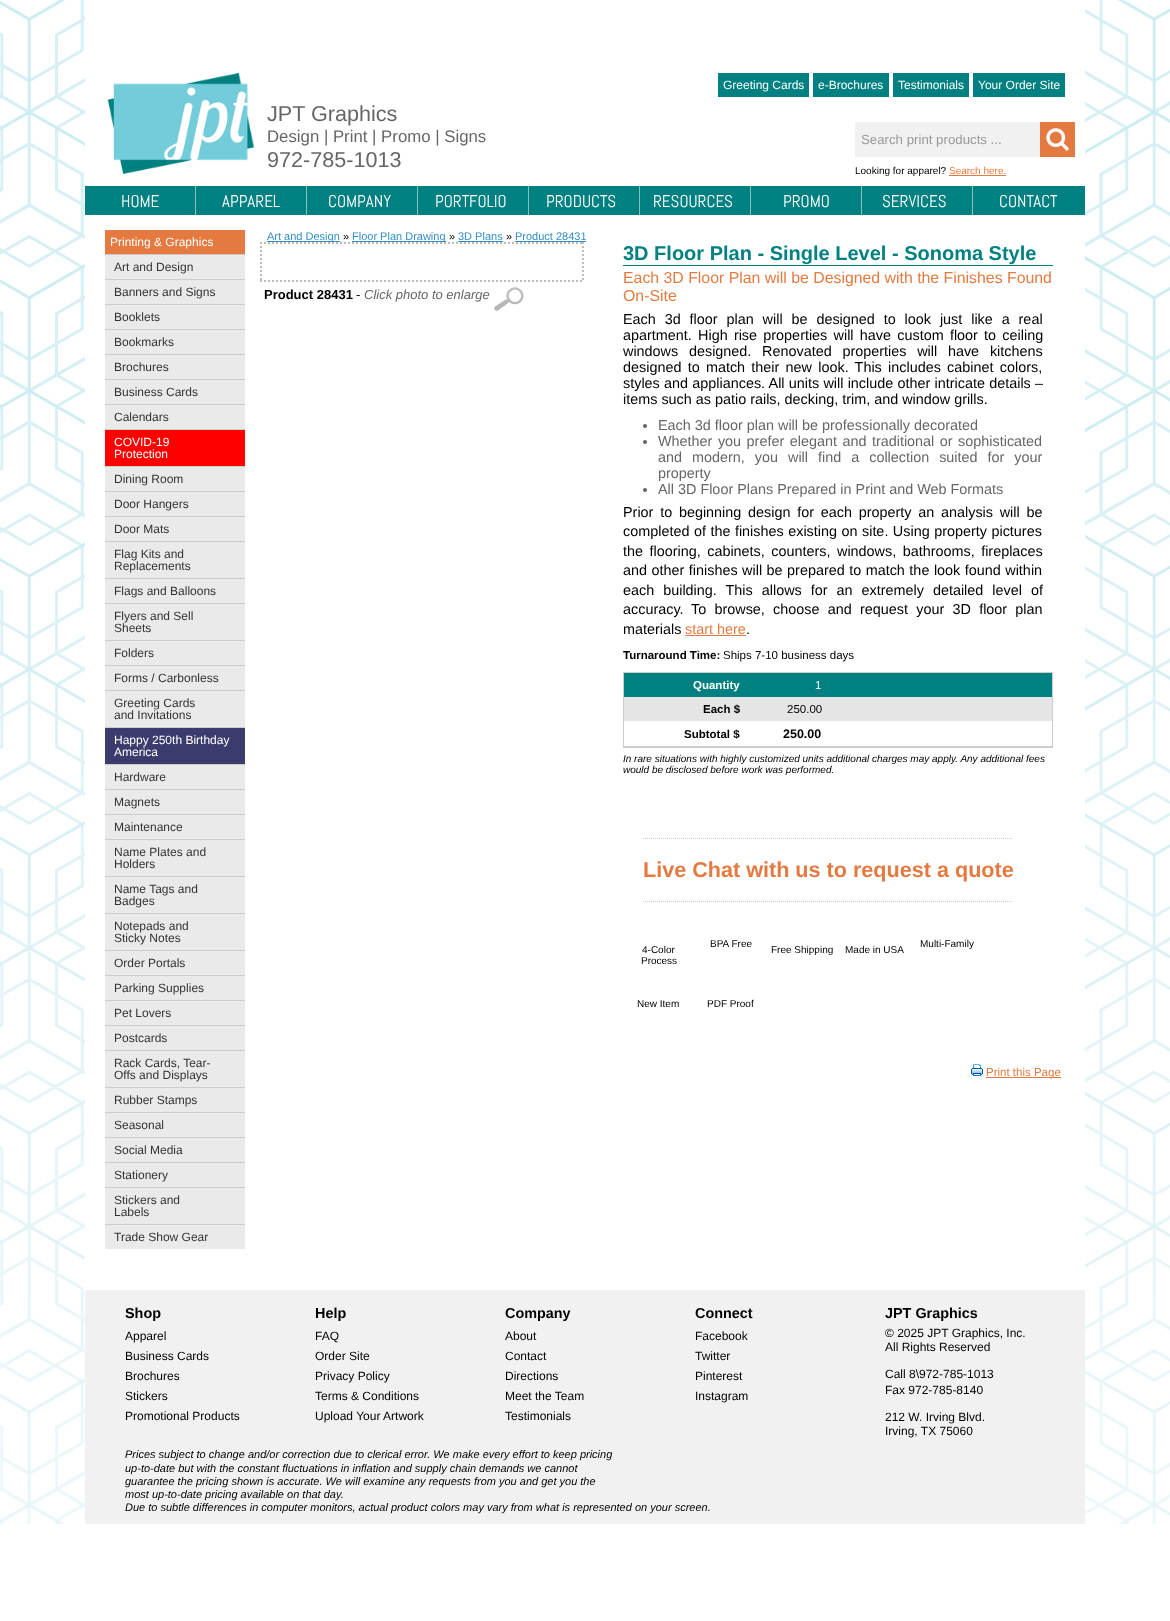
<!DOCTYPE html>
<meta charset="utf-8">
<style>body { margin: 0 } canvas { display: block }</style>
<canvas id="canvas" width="1170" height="1621"></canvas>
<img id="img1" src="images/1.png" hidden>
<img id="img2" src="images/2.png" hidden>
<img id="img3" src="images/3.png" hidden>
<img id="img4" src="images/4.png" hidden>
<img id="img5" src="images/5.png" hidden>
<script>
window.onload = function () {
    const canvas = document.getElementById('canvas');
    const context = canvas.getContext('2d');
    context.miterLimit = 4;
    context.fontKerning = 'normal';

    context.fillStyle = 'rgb(255, 255, 255)';
    context.fillRect(0, 0, 1170, 1621);
    context.drawImage(document.getElementById('img1'), 0, 0, 1170, 1524);
    context.fillRect(85, 0, 1000, 1290);
    context.drawImage(document.getElementById('img2'), 107, 72, 148, 102);
    context.fillStyle = 'rgb(0, 128, 128)';
    context.fillRect(718, 73, 91, 24);
    context.fillRect(813, 73, 76, 24);
    context.fillRect(893, 73, 76, 24);
    context.fillRect(973, 73, 92, 24);
    context.fillStyle = 'rgb(241, 241, 241)';
    context.fillRect(855, 122, 185, 35);
    context.fillStyle = 'rgb(228, 122, 64)';
    context.fillRect(1040, 122, 35, 35);
    context.drawImage(document.getElementById('img3'), 1046, 128, 23, 23);
    context.fillRect(949, 175, 57, 1);
    context.fillStyle = 'rgb(0, 128, 128)';
    context.fillRect(85, 186, 1000, 29);
    context.fillStyle = 'rgb(128, 192, 192)';
    context.fillRect(195, 186, 1, 29);
    context.fillRect(306, 186, 1, 29);
    context.fillRect(417, 186, 1, 29);
    context.fillRect(528, 186, 1, 29);
    context.fillRect(639, 186, 1, 29);
    context.fillRect(750, 186, 1, 29);
    context.fillRect(861, 186, 1, 29);
    context.fillRect(972, 186, 1, 29);
    context.fillStyle = 'rgb(228, 122, 64)';
    context.fillRect(105, 230, 140, 24);
    context.fillStyle = 'rgb(234, 234, 234)';
    context.fillRect(105, 255, 140, 24);
    context.fillStyle = 'rgb(204, 204, 204)';
    context.fillRect(105, 254, 140, 1);
    context.fillStyle = 'rgb(234, 234, 234)';
    context.fillRect(105, 280, 140, 24);
    context.fillStyle = 'rgb(204, 204, 204)';
    context.fillRect(105, 279, 140, 1);
    context.fillStyle = 'rgb(234, 234, 234)';
    context.fillRect(105, 305, 140, 24);
    context.fillStyle = 'rgb(204, 204, 204)';
    context.fillRect(105, 304, 140, 1);
    context.fillStyle = 'rgb(234, 234, 234)';
    context.fillRect(105, 330, 140, 24);
    context.fillStyle = 'rgb(204, 204, 204)';
    context.fillRect(105, 329, 140, 1);
    context.fillStyle = 'rgb(234, 234, 234)';
    context.fillRect(105, 355, 140, 24);
    context.fillStyle = 'rgb(204, 204, 204)';
    context.fillRect(105, 354, 140, 1);
    context.fillStyle = 'rgb(234, 234, 234)';
    context.fillRect(105, 380, 140, 24);
    context.fillStyle = 'rgb(204, 204, 204)';
    context.fillRect(105, 379, 140, 1);
    context.fillStyle = 'rgb(234, 234, 234)';
    context.fillRect(105, 405, 140, 24);
    context.fillStyle = 'rgb(204, 204, 204)';
    context.fillRect(105, 404, 140, 1);
    context.fillStyle = 'rgb(255, 0, 0)';
    context.fillRect(105, 430, 140, 36);
    context.fillStyle = 'rgb(204, 204, 204)';
    context.fillRect(105, 429, 140, 1);
    context.fillStyle = 'rgb(234, 234, 234)';
    context.fillRect(105, 467, 140, 24);
    context.fillStyle = 'rgb(204, 204, 204)';
    context.fillRect(105, 466, 140, 1);
    context.fillStyle = 'rgb(234, 234, 234)';
    context.fillRect(105, 492, 140, 24);
    context.fillStyle = 'rgb(204, 204, 204)';
    context.fillRect(105, 491, 140, 1);
    context.fillStyle = 'rgb(234, 234, 234)';
    context.fillRect(105, 517, 140, 24);
    context.fillStyle = 'rgb(204, 204, 204)';
    context.fillRect(105, 516, 140, 1);
    context.fillStyle = 'rgb(234, 234, 234)';
    context.fillRect(105, 542, 140, 36);
    context.fillStyle = 'rgb(204, 204, 204)';
    context.fillRect(105, 541, 140, 1);
    context.fillStyle = 'rgb(234, 234, 234)';
    context.fillRect(105, 579, 140, 24);
    context.fillStyle = 'rgb(204, 204, 204)';
    context.fillRect(105, 578, 140, 1);
    context.fillStyle = 'rgb(234, 234, 234)';
    context.fillRect(105, 604, 140, 36);
    context.fillStyle = 'rgb(204, 204, 204)';
    context.fillRect(105, 603, 140, 1);
    context.fillStyle = 'rgb(234, 234, 234)';
    context.fillRect(105, 641, 140, 24);
    context.fillStyle = 'rgb(204, 204, 204)';
    context.fillRect(105, 640, 140, 1);
    context.fillStyle = 'rgb(234, 234, 234)';
    context.fillRect(105, 666, 140, 24);
    context.fillStyle = 'rgb(204, 204, 204)';
    context.fillRect(105, 665, 140, 1);
    context.fillStyle = 'rgb(234, 234, 234)';
    context.fillRect(105, 691, 140, 36);
    context.fillStyle = 'rgb(204, 204, 204)';
    context.fillRect(105, 690, 140, 1);
    context.fillStyle = 'rgb(60, 59, 110)';
    context.fillRect(105, 728, 140, 36);
    context.fillStyle = 'rgb(204, 204, 204)';
    context.fillRect(105, 727, 140, 1);
    context.fillStyle = 'rgb(234, 234, 234)';
    context.fillRect(105, 765, 140, 24);
    context.fillStyle = 'rgb(204, 204, 204)';
    context.fillRect(105, 764, 140, 1);
    context.fillStyle = 'rgb(234, 234, 234)';
    context.fillRect(105, 790, 140, 24);
    context.fillStyle = 'rgb(204, 204, 204)';
    context.fillRect(105, 789, 140, 1);
    context.fillStyle = 'rgb(234, 234, 234)';
    context.fillRect(105, 815, 140, 24);
    context.fillStyle = 'rgb(204, 204, 204)';
    context.fillRect(105, 814, 140, 1);
    context.fillStyle = 'rgb(234, 234, 234)';
    context.fillRect(105, 840, 140, 36);
    context.fillStyle = 'rgb(204, 204, 204)';
    context.fillRect(105, 839, 140, 1);
    context.fillStyle = 'rgb(234, 234, 234)';
    context.fillRect(105, 877, 140, 36);
    context.fillStyle = 'rgb(204, 204, 204)';
    context.fillRect(105, 876, 140, 1);
    context.fillStyle = 'rgb(234, 234, 234)';
    context.fillRect(105, 914, 140, 36);
    context.fillStyle = 'rgb(204, 204, 204)';
    context.fillRect(105, 913, 140, 1);
    context.fillStyle = 'rgb(234, 234, 234)';
    context.fillRect(105, 951, 140, 24);
    context.fillStyle = 'rgb(204, 204, 204)';
    context.fillRect(105, 950, 140, 1);
    context.fillStyle = 'rgb(234, 234, 234)';
    context.fillRect(105, 976, 140, 24);
    context.fillStyle = 'rgb(204, 204, 204)';
    context.fillRect(105, 975, 140, 1);
    context.fillStyle = 'rgb(234, 234, 234)';
    context.fillRect(105, 1001, 140, 24);
    context.fillStyle = 'rgb(204, 204, 204)';
    context.fillRect(105, 1000, 140, 1);
    context.fillStyle = 'rgb(234, 234, 234)';
    context.fillRect(105, 1026, 140, 24);
    context.fillStyle = 'rgb(204, 204, 204)';
    context.fillRect(105, 1025, 140, 1);
    context.fillStyle = 'rgb(234, 234, 234)';
    context.fillRect(105, 1051, 140, 36);
    context.fillStyle = 'rgb(204, 204, 204)';
    context.fillRect(105, 1050, 140, 1);
    context.fillStyle = 'rgb(234, 234, 234)';
    context.fillRect(105, 1088, 140, 24);
    context.fillStyle = 'rgb(204, 204, 204)';
    context.fillRect(105, 1087, 140, 1);
    context.fillStyle = 'rgb(234, 234, 234)';
    context.fillRect(105, 1113, 140, 24);
    context.fillStyle = 'rgb(204, 204, 204)';
    context.fillRect(105, 1112, 140, 1);
    context.fillStyle = 'rgb(234, 234, 234)';
    context.fillRect(105, 1138, 140, 24);
    context.fillStyle = 'rgb(204, 204, 204)';
    context.fillRect(105, 1137, 140, 1);
    context.fillStyle = 'rgb(234, 234, 234)';
    context.fillRect(105, 1163, 140, 24);
    context.fillStyle = 'rgb(204, 204, 204)';
    context.fillRect(105, 1162, 140, 1);
    context.fillStyle = 'rgb(234, 234, 234)';
    context.fillRect(105, 1188, 140, 36);
    context.fillStyle = 'rgb(204, 204, 204)';
    context.fillRect(105, 1187, 140, 1);
    context.fillStyle = 'rgb(234, 234, 234)';
    context.fillRect(105, 1225, 140, 24);
    context.fillStyle = 'rgb(204, 204, 204)';
    context.fillRect(105, 1224, 140, 1);
    context.fillStyle = 'rgb(51, 142, 195)';
    context.fillRect(267, 241, 73, 1);
    context.fillRect(352, 241, 94, 1);
    context.fillRect(458, 241, 45, 1);
    context.fillRect(515, 241, 71, 1);
    context.beginPath();
    context.moveTo(260, 243);
    context.lineTo(584, 243);
    context.strokeStyle = 'rgb(187, 187, 187)';
    context.lineWidth = 2;
    context.setLineDash([2, 2]);
    context.stroke();
    context.beginPath();
    context.moveTo(583, 242);
    context.lineTo(583, 282);
    context.stroke();
    context.beginPath();
    context.moveTo(260, 281);
    context.lineTo(584, 281);
    context.stroke();
    context.beginPath();
    context.moveTo(261, 242);
    context.lineTo(261, 282);
    context.stroke();
    context.drawImage(document.getElementById('img4'), 494, 286, 30, 26);
    context.fillStyle = 'rgb(0, 128, 128)';
    context.fillRect(623, 265, 430, 1);
    context.fillStyle = 'rgb(102, 102, 102)';
    context.beginPath();
    context.arc(645, 426, 2, 0, 2 * Math.PI);
    context.fill();
    context.beginPath();
    context.arc(645, 442, 2, 0, 2 * Math.PI);
    context.fill();
    context.beginPath();
    context.arc(645, 490, 2, 0, 2 * Math.PI);
    context.fill();
    context.fillStyle = 'rgb(228, 122, 64)';
    context.fillRect(685, 635, 61, 1);
    context.strokeStyle = 'rgb(204, 204, 204)';
    context.lineWidth = 1;
    context.setLineDash([]);
    context.strokeRect(623.5, 672.5, 429, 75);
    context.fillStyle = 'rgb(0, 128, 128)';
    context.fillRect(624, 673, 428, 24);
    context.fillStyle = 'rgb(229, 229, 229)';
    context.fillRect(624, 697, 428, 24);
    context.fillStyle = 'rgb(204, 204, 204)';
    context.fillRect(624, 746, 428, 1);
    context.beginPath();
    context.moveTo(643, 838.5);
    context.lineTo(1013, 838.5);
    context.setLineDash([1, 1]);
    context.stroke();
    context.beginPath();
    context.moveTo(643, 901.5);
    context.lineTo(1013, 901.5);
    context.stroke();
    context.drawImage(document.getElementById('img5'), 971, 1064, 12, 12);
    context.fillStyle = 'rgb(228, 122, 64)';
    context.fillRect(986, 1077, 75, 1);
    context.fillStyle = 'rgb(241, 241, 241)';
    context.fillRect(85, 1290, 1000, 234);
    context.font = '12px Liberation Sans';
    context.fillStyle = 'rgb(255, 255, 255)';
    context.fillText('Greeting Cards', 723, 89);
    context.fillText('e-Brochures', 818, 89);
    context.fillText('Testimonials', 898, 89);
    context.fillText('Your Order Site', 978, 89);
    context.font = '21.6px Liberation Sans';
    context.fillStyle = 'rgb(102, 102, 102)';
    context.fillText('JPT Graphics', 267, 121);
    context.font = '16.8px Liberation Sans';
    context.fillText('Design | Print | Promo | Signs', 267, 142);
    context.font = '21.6px Liberation Sans';
    context.fillText('972-785-1013', 267, 167);
    context.font = '13.25px Liberation Sans';
    context.fillStyle = 'rgb(153, 153, 153)';
    context.fillText('Search print products ...', 861, 144);
    context.font = '10px Liberation Sans';
    context.fillStyle = 'rgb(0, 0, 0)';
    context.fillText('Looking for apparel?', 855, 174);
    context.fillStyle = 'rgb(228, 122, 64)';
    context.fillText('Search here.', 949, 174);
    context.font = '17px Abel';
    context.fillStyle = 'rgb(255, 255, 255)';
    context.fillText('HOME', 121, 207);
    context.fillText('APPAREL', 222, 207);
    context.fillText('COMPANY', 328, 207);
    context.fillText('PORTFOLIO', 435, 207);
    context.fillText('PRODUCTS', 546, 207);
    context.fillText('RESOURCES', 653, 207);
    context.fillText('PROMO', 783, 207);
    context.fillText('SERVICES', 882, 207);
    context.fillText('CONTACT', 999, 207);
    context.font = '12px Liberation Sans';
    context.fillText('Printing & Graphics', 110, 246);
    context.fillStyle = 'rgb(51, 51, 51)';
    context.fillText('Art and Design', 114, 271);
    context.fillText('Banners and Signs', 114, 296);
    context.fillText('Booklets', 114, 321);
    context.fillText('Bookmarks', 114, 346);
    context.fillText('Brochures', 114, 371);
    context.fillText('Business Cards', 114, 396);
    context.fillText('Calendars', 114, 421);
    context.fillStyle = 'rgb(255, 255, 255)';
    context.fillText('COVID-19', 114, 446);
    context.fillText('Protection', 114, 458);
    context.fillStyle = 'rgb(51, 51, 51)';
    context.fillText('Dining Room', 114, 483);
    context.fillText('Door Hangers', 114, 508);
    context.fillText('Door Mats', 114, 533);
    context.fillText('Flag Kits and', 114, 558);
    context.fillText('Replacements', 114, 570);
    context.fillText('Flags and Balloons', 114, 595);
    context.fillText('Flyers and Sell', 114, 620);
    context.fillText('Sheets', 114, 632);
    context.fillText('Folders', 114, 657);
    context.fillText('Forms / Carbonless', 114, 682);
    context.fillText('Greeting Cards', 114, 707);
    context.fillText('and Invitations', 114, 719);
    context.fillStyle = 'rgb(255, 255, 255)';
    context.fillText('Happy 250th Birthday', 114, 744);
    context.fillText('America', 114, 756);
    context.fillStyle = 'rgb(51, 51, 51)';
    context.fillText('Hardware', 114, 781);
    context.fillText('Magnets', 114, 806);
    context.fillText('Maintenance', 114, 831);
    context.fillText('Name Plates and', 114, 856);
    context.fillText('Holders', 114, 868);
    context.fillText('Name Tags and', 114, 893);
    context.fillText('Badges', 114, 905);
    context.fillText('Notepads and', 114, 930);
    context.fillText('Sticky Notes', 114, 942);
    context.fillText('Order Portals', 114, 967);
    context.fillText('Parking Supplies', 114, 992);
    context.fillText('Pet Lovers', 114, 1017);
    context.fillText('Postcards', 114, 1042);
    context.fillText('Rack Cards, Tear-', 114, 1067);
    context.fillText('Offs and Displays', 114, 1079);
    context.fillText('Rubber Stamps', 114, 1104);
    context.fillText('Seasonal', 114, 1129);
    context.fillText('Social Media', 114, 1154);
    context.fillText('Stationery', 114, 1179);
    context.fillText('Stickers and', 114, 1204);
    context.fillText('Labels', 114, 1216);
    context.fillText('Trade Show Gear', 114, 1241);
    context.font = '11px Liberation Sans';
    context.fillStyle = 'rgb(51, 142, 195)';
    context.fillText('Art and Design', 267, 240);
    context.fillStyle = 'rgb(0, 0, 0)';
    context.fillText('»', 343, 240);
    context.fillStyle = 'rgb(51, 142, 195)';
    context.fillText('Floor Plan Drawing', 352, 240);
    context.fillStyle = 'rgb(0, 0, 0)';
    context.fillText('»', 449, 240);
    context.fillStyle = 'rgb(51, 142, 195)';
    context.fillText('3D Plans', 458, 240);
    context.fillStyle = 'rgb(0, 0, 0)';
    context.fillText('»', 506, 240);
    context.fillStyle = 'rgb(51, 142, 195)';
    context.fillText('Product 28431', 515, 240);
    context.font = 'bold 13px Liberation Sans';
    context.fillStyle = 'rgb(0, 0, 0)';
    context.fillText('Product 28431', 264, 299);
    context.font = '13px Liberation Sans';
    context.fillText('-', 356, 299);
    context.font = 'italic 13px Liberation Sans';
    context.fillStyle = 'rgb(102, 102, 102)';
    context.fillText('Click photo to enlarge', 364, 299);
    context.font = 'bold 20px Liberation Sans';
    context.fillStyle = 'rgb(0, 128, 128)';
    context.fillText('3D Floor Plan - Single Level - Sonoma Style', 623, 260);
    context.font = '15.85px Liberation Sans';
    context.fillStyle = 'rgb(228, 122, 64)';
    context.fillText('Each 3D Floor Plan will be Designed with the Finishes Found', 623, 283);
    context.fillText('On-Site', 623, 301);
    context.wordSpacing = '4.9px';
    context.font = '14.4px Liberation Sans';
    context.fillStyle = 'rgb(0, 0, 0)';
    context.fillText('Each 3d floor plan will be designed to look just like a real', 623, 324);
    context.wordSpacing = '2.25px';
    context.fillText('apartment. High rise properties will have custom floor to ceiling', 623, 340);
    context.wordSpacing = '6.75px';
    context.fillText('windows designed. Renovated properties will have kitchens', 623, 356);
    context.wordSpacing = '2.25px';
    context.fillText('designed to match their new look. This includes cabinet colors,', 623, 372);
    context.wordSpacing = '0.25px';
    context.fillText('styles and appliances. All units will include other intricate details –', 623, 388);
    context.wordSpacing = '0px';
    context.fillText('items such as patio rails, decking, trim, and window grills.', 623, 404);
    context.fillStyle = 'rgb(102, 102, 102)';
    context.fillText('Each 3d floor plan will be professionally decorated', 658, 430);
    context.wordSpacing = '1.5px';
    context.fillText('Whether you prefer elegant and traditional or sophisticated', 658, 446);
    context.wordSpacing = '6px';
    context.fillText('and modern, you will find a collection suited for your', 658, 462);
    context.wordSpacing = '0px';
    context.fillText('property', 658, 478);
    context.fillText('All 3D Floor Plans Prepared in Print and Web Formats', 658, 494);
    context.wordSpacing = '2.75px';
    context.fillStyle = 'rgb(0, 0, 0)';
    context.fillText('Prior to beginning design for each property an analysis will be', 623, 517);
    context.wordSpacing = '0.5px';
    context.fillText('completed of the finishes existing on site. Using property pictures', 623, 536);
    context.wordSpacing = '2.5px';
    context.fillText('the flooring, cabinets, counters, windows, bathrooms, fireplaces', 623, 556);
    context.wordSpacing = '0.5px';
    context.fillText('and other finishes will be prepared to match the look found within', 623, 575);
    context.wordSpacing = '5px';
    context.fillText('each building. This allows for an extremely detailed level of', 623, 595);
    context.wordSpacing = '0px';
    context.fillText('accuracy.', 623, 614);
    context.wordSpacing = '4.25px';
    context.fillText('To browse, choose and request your 3D floor plan', 691, 614);
    context.wordSpacing = '0px';
    context.fillText('materials', 623, 634);
    context.fillStyle = 'rgb(228, 122, 64)';
    context.fillText('start here', 685, 634);
    context.fillStyle = 'rgb(0, 0, 0)';
    context.fillText('.', 746, 634);
    context.font = 'bold 11.5px Liberation Sans';
    context.fillText('Turnaround Time:', 623, 659);
    context.font = '11.5px Liberation Sans';
    context.fillText('Ships 7-10 business days', 723, 659);
    context.font = 'bold 11.5px Liberation Sans';
    context.fillStyle = 'rgb(255, 255, 255)';
    context.fillText('Quantity', 693, 689);
    context.font = '11.5px Liberation Sans';
    context.fillText('1', 815, 689);
    context.font = 'bold 11.5px Liberation Sans';
    context.fillStyle = 'rgb(0, 0, 0)';
    context.fillText('Each $', 703, 713);
    context.font = '11.5px Liberation Sans';
    context.fillText('250.00', 787, 713);
    context.font = 'bold 11.5px Liberation Sans';
    context.fillText('Subtotal $', 684, 738);
    context.font = 'bold 12.5px Liberation Sans';
    context.fillText('250.00', 783, 738);
    context.font = 'italic 10px Liberation Sans';
    context.fillText('In rare situations with highly customized units additional charges may apply. Any additional fees', 623, 762);
    context.fillText('would be disclosed before work was performed.', 623, 773);
    context.font = 'bold 21.6px Liberation Sans';
    context.fillStyle = 'rgb(228, 122, 64)';
    context.fillText('Live Chat with us to request a quote', 643, 877);
    context.font = '10px Liberation Sans';
    context.fillStyle = 'rgb(0, 0, 0)';
    context.fillText('BPA Free', 710, 947);
    context.fillText('Multi-Family', 920, 947);
    context.fillText('4-Color', 642, 953);
    context.fillText('Process', 641, 964);
    context.fillText('Free Shipping', 771, 953);
    context.fillText('Made in USA', 845, 953);
    context.fillText('New Item', 637, 1007);
    context.fillText('PDF Proof', 707, 1007);
    context.font = '11.5px Liberation Sans';
    context.fillStyle = 'rgb(228, 122, 64)';
    context.fillText('Print this Page', 986, 1076);
    context.font = 'bold 14.4px Liberation Sans';
    context.fillStyle = 'rgb(0, 0, 0)';
    context.fillText('Shop', 125, 1318);
    context.font = '12px Liberation Sans';
    context.fillText('Apparel', 125, 1340);
    context.fillText('Business Cards', 125, 1360);
    context.fillText('Brochures', 125, 1380);
    context.fillText('Stickers', 125, 1400);
    context.fillText('Promotional Products', 125, 1420);
    context.font = 'bold 14.4px Liberation Sans';
    context.fillText('Help', 315, 1318);
    context.font = '12px Liberation Sans';
    context.fillText('FAQ', 315, 1340);
    context.fillText('Order Site', 315, 1360);
    context.fillText('Privacy Policy', 315, 1380);
    context.fillText('Terms & Conditions', 315, 1400);
    context.fillText('Upload Your Artwork', 315, 1420);
    context.font = 'bold 14.4px Liberation Sans';
    context.fillText('Company', 505, 1318);
    context.font = '12px Liberation Sans';
    context.fillText('About', 505, 1340);
    context.fillText('Contact', 505, 1360);
    context.fillText('Directions', 505, 1380);
    context.fillText('Meet the Team', 505, 1400);
    context.fillText('Testimonials', 505, 1420);
    context.font = 'bold 14.4px Liberation Sans';
    context.fillText('Connect', 695, 1318);
    context.font = '12px Liberation Sans';
    context.fillText('Facebook', 695, 1340);
    context.fillText('Twitter', 695, 1360);
    context.fillText('Pinterest', 695, 1380);
    context.fillText('Instagram', 695, 1400);
    context.font = 'bold 14.4px Liberation Sans';
    context.fillText('JPT Graphics', 885, 1318);
    context.font = '12px Liberation Sans';
    context.fillText('© 2025 JPT Graphics, Inc.', 885, 1337);
    context.fillText('All Rights Reserved', 885, 1351);
    context.fillText('Call 8\\972-785-1013', 885, 1378);
    context.fillText('Fax 972-785-8140', 885, 1394);
    context.fillText('212 W. Irving Blvd.', 885, 1421);
    context.fillText('Irving, TX 75060', 885, 1435);
    context.font = 'italic 11px Liberation Sans';
    context.fillText('Prices subject to change and/or correction due to clerical error. We make every effort to keep pricing', 125, 1458);
    context.fillText('up-to-date but with the constant fluctuations in inflation and supply chain demands we cannot', 125, 1472);
    context.fillText('guarantee the pricing shown is accurate. We will examine any requests from you and get you the', 125, 1485);
    context.fillText('most up-to-date pricing available on that day.', 125, 1498);
    context.fillText('Due to subtle differences in computer monitors, actual product colors may vary from what is represented on your screen.', 125, 1511);
};
</script>
